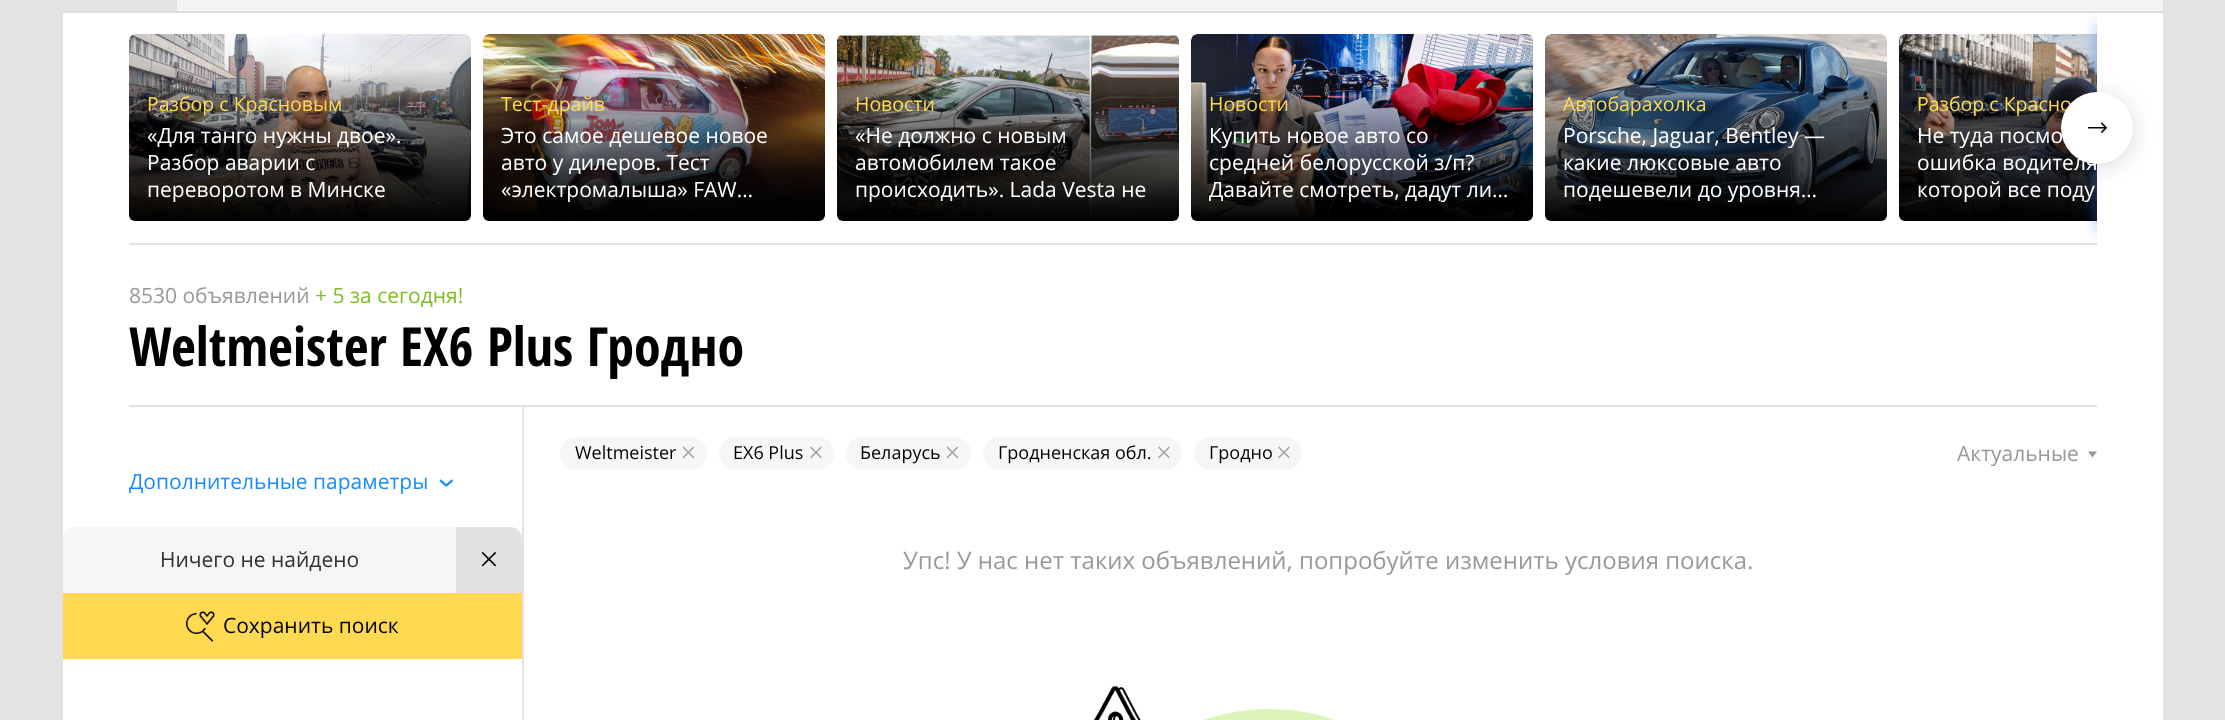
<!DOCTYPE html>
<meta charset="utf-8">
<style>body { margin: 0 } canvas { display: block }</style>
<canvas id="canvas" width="2225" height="720"></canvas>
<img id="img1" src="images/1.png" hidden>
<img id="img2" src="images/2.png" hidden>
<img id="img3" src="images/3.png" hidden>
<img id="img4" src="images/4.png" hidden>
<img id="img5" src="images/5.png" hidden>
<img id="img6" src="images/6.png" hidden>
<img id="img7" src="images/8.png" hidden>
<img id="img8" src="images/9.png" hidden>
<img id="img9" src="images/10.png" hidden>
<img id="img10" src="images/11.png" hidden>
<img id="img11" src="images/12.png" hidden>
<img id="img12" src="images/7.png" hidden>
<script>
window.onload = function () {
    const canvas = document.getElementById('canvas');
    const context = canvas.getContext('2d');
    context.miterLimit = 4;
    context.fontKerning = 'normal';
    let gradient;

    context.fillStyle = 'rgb(227, 227, 227)';
    context.fillRect(0, 0, 2225, 720);
    context.fillStyle = 'rgb(255, 255, 255)';
    context.fillRect(63, 13, 2100, 707);
    context.fillStyle = 'rgb(244, 244, 244)';
    context.fillRect(177, 0, 1986, 11);
    context.fillStyle = 'rgb(221, 221, 221)';
    context.fillRect(63, 11, 2100, 2);
    context.fillStyle = 'rgb(226, 226, 226)';
    context.fillRect(129, 243, 1968, 2);
    context.drawImage(document.getElementById('img1'), 129, 34, 342, 186);
    gradient = context.createLinearGradient(300, 34, 300, 221);
    gradient.addColorStop(0, 'rgba(0, 0, 0, 0)');
    gradient.addColorStop(0.16, 'rgba(0, 0, 0, 0)');
    gradient.addColorStop(1, 'rgb(0, 0, 0)');
    context.fillStyle = gradient;
    context.beginPath();
    context.roundRect(129, 35, 342, 186, 6);
    context.fill();
    context.drawImage(document.getElementById('img2'), 483, 34, 342, 186);
    gradient = context.createLinearGradient(654, 34, 654, 221);
    gradient.addColorStop(0, 'rgba(0, 0, 0, 0)');
    gradient.addColorStop(0.16, 'rgba(0, 0, 0, 0)');
    gradient.addColorStop(1, 'rgb(0, 0, 0)');
    context.fillStyle = gradient;
    context.beginPath();
    context.roundRect(483, 35, 342, 186, 6);
    context.fill();
    context.drawImage(document.getElementById('img3'), 837, 34, 342, 186);
    gradient = context.createLinearGradient(1008, 34, 1008, 221);
    gradient.addColorStop(0, 'rgba(0, 0, 0, 0)');
    gradient.addColorStop(0.16, 'rgba(0, 0, 0, 0)');
    gradient.addColorStop(1, 'rgb(0, 0, 0)');
    context.fillStyle = gradient;
    context.beginPath();
    context.roundRect(837, 35, 342, 186, 6);
    context.fill();
    context.drawImage(document.getElementById('img4'), 1191, 34, 342, 186);
    gradient = context.createLinearGradient(1362, 34, 1362, 221);
    gradient.addColorStop(0, 'rgba(0, 0, 0, 0)');
    gradient.addColorStop(0.16, 'rgba(0, 0, 0, 0)');
    gradient.addColorStop(1, 'rgb(0, 0, 0)');
    context.fillStyle = gradient;
    context.beginPath();
    context.roundRect(1191, 35, 342, 186, 6);
    context.fill();
    context.drawImage(document.getElementById('img5'), 1545, 34, 342, 186);
    gradient = context.createLinearGradient(1716, 34, 1716, 221);
    gradient.addColorStop(0, 'rgba(0, 0, 0, 0)');
    gradient.addColorStop(0.16, 'rgba(0, 0, 0, 0)');
    gradient.addColorStop(1, 'rgb(0, 0, 0)');
    context.fillStyle = gradient;
    context.beginPath();
    context.roundRect(1545, 35, 342, 186, 6);
    context.fill();
    context.drawImage(document.getElementById('img6'), 1899, 34, 198, 186);
    gradient = context.createLinearGradient(2070, 34, 2070, 221);
    gradient.addColorStop(0, 'rgba(0, 0, 0, 0)');
    gradient.addColorStop(0.16, 'rgba(0, 0, 0, 0)');
    gradient.addColorStop(1, 'rgb(0, 0, 0)');
    context.fillStyle = gradient;
    context.beginPath();
    context.roundRect(1899, 35, 198, 186, [6, 0, 0, 6]);
    context.fill();
    context.save();
    context.beginPath();
    context.rect(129, 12, 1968, 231);
    context.clip();
    context.fillStyle = 'rgba(41, 121, 255, 0.5)';
    context.filter = 'blur(7.5px)';
    context.beginPath();
    context.rect(2097, 24, 66, 207);
    context.fill();
    context.filter = 'none';
    context.restore();
    context.fillStyle = 'rgba(0, 0, 0, 0.15)';
    context.filter = 'blur(11px)';
    context.beginPath();
    context.roundRect(2061, 95, 72, 72, 36);
    context.fill();
    context.filter = 'none';
    context.fillStyle = 'rgb(226, 226, 226)';
    context.fillRect(129, 405, 1968, 2);
    context.fillRect(522, 405, 2, 315);
    context.fillStyle = 'rgb(246, 246, 246)';
    context.beginPath();
    context.roundRect(63, 527, 459, 66, [12, 12, 0, 0]);
    context.fill();
    context.fillStyle = 'rgb(226, 226, 226)';
    context.beginPath();
    context.roundRect(456, 527, 66, 66, [0, 12, 0, 0]);
    context.fill();
    context.drawImage(document.getElementById('img7'), 481, 551, 16, 16);
    context.fillStyle = 'rgb(255, 218, 80)';
    context.fillRect(63, 593, 459, 66);
    context.drawImage(document.getElementById('img8'), 186, 611, 29, 31);
    context.fillStyle = 'rgb(246, 246, 246)';
    context.beginPath();
    context.roundRect(560, 437, 147, 33, 16.5);
    context.fill();
    context.drawImage(document.getElementById('img9'), 682, 446, 13, 13);
    context.beginPath();
    context.roundRect(719, 437, 115, 33, 16.5);
    context.fill();
    context.drawImage(document.getElementById('img10'), 810, 446, 12, 13);
    context.beginPath();
    context.roundRect(846, 437, 125, 33, 16.5);
    context.fill();
    context.drawImage(document.getElementById('img9'), 946, 446, 13, 13);
    context.beginPath();
    context.roundRect(983, 437, 199, 33, 16.5);
    context.fill();
    context.drawImage(document.getElementById('img10'), 1158, 446, 12, 13);
    context.beginPath();
    context.roundRect(1194, 437, 108, 33, 16.5);
    context.fill();
    context.drawImage(document.getElementById('img10'), 1278, 446, 12, 13);
    context.fillStyle = 'rgb(153, 153, 153)';
    context.beginPath();
    context.moveTo(2088, 451.5);
    context.lineTo(2097, 451.5);
    context.lineTo(2092.5, 457.5);
    context.closePath();
    context.fill();
    context.drawImage(document.getElementById('img11'), 1093, 685, 242, 35);
    context.font = '19.5px Open Sans';
    context.fillStyle = 'rgb(255, 218, 80)';
    context.fillText('Разбор с Красновым', 147, 111);
    context.font = '21px Open Sans';
    context.fillStyle = 'rgb(255, 255, 255)';
    context.fillText('«Для танго нужны двое».', 147, 143);
    context.fillText('Разбор аварии с', 147, 170);
    context.fillText('переворотом в Минске', 147, 197);
    context.font = '19.5px Open Sans';
    context.fillStyle = 'rgb(255, 218, 80)';
    context.fillText('Тест-драйв', 501, 111);
    context.font = '21px Open Sans';
    context.fillStyle = 'rgb(255, 255, 255)';
    context.fillText('Это самое дешевое новое', 501, 143);
    context.fillText('авто у дилеров. Тест', 501, 170);
    context.fillText('«электромалыша» FAW…', 501, 197);
    context.font = '19.5px Open Sans';
    context.fillStyle = 'rgb(255, 218, 80)';
    context.fillText('Новости', 855, 111);
    context.font = '21px Open Sans';
    context.fillStyle = 'rgb(255, 255, 255)';
    context.fillText('«Не должно с новым', 855, 143);
    context.fillText('автомобилем такое', 855, 170);
    context.fillText('происходить». Lada Vesta не', 855, 197);
    context.font = '19.5px Open Sans';
    context.fillStyle = 'rgb(255, 218, 80)';
    context.fillText('Новости', 1209, 111);
    context.font = '21px Open Sans';
    context.fillStyle = 'rgb(255, 255, 255)';
    context.fillText('Купить новое авто со', 1209, 143);
    context.fillText('средней белорусской з/п?', 1209, 170);
    context.fillText('Давайте смотреть, дадут ли…', 1209, 197);
    context.font = '19.5px Open Sans';
    context.fillStyle = 'rgb(255, 218, 80)';
    context.fillText('Автобарахолка', 1563, 111);
    context.font = '21px Open Sans';
    context.fillStyle = 'rgb(255, 255, 255)';
    context.fillText('Porsche, Jaguar, Bentley —', 1563, 143);
    context.fillText('какие люксовые авто', 1563, 170);
    context.fillText('подешевели до уровня…', 1563, 197);
    context.font = '19.5px Open Sans';
    context.fillStyle = 'rgb(255, 218, 80)';
    context.fillText('Разбор с Красно', 1917, 111);
    context.font = '21px Open Sans';
    context.fillStyle = 'rgb(255, 255, 255)';
    context.fillText('Не туда посмо', 1917, 143);
    context.fillText('ошибка водителя', 1917, 170);
    context.fillText('которой все поду', 1917, 197);
    context.beginPath();
    context.arc(2097, 128, 36, 0, 2 * Math.PI);
    context.fill();
    context.drawImage(document.getElementById('img12'), 2088, 122, 19, 11);
    context.fillStyle = 'rgb(153, 153, 153)';
    context.fillText('8530 объявлений', 129, 303);
    context.fillStyle = 'rgb(125, 191, 38)';
    context.fillText('+ 5 за сегодня!', 315, 303);
    context.font = 'bold 54px Open Sans Condensed';
    context.fillStyle = 'rgb(0, 0, 0)';
    context.fillText('Weltmeister EX6 Plus Гродно', 129, 366);
    context.font = '21px Open Sans';
    context.fillStyle = 'rgb(25, 140, 255)';
    context.fillText('Дополнительные параметры', 129, 489);
    context.font = '33px Open Sans';
    context.save();
    context.translate(455, 488);
    context.rotate(-90 * Math.PI / 180);
    context.fillText('‹', 0, 0);
    context.restore();
    context.font = '21px Open Sans';
    context.fillStyle = 'rgb(49, 49, 49)';
    context.fillText('Ничего не найдено', 160, 567);
    context.fillStyle = 'rgb(0, 0, 0)';
    context.fillText('Сохранить поиск', 223, 633);
    context.font = '18px Open Sans';
    context.fillText('Weltmeister', 575, 459);
    context.fillText('EX6 Plus', 733, 459);
    context.fillText('Беларусь', 860, 459);
    context.fillText('Гродненская обл.', 998, 459);
    context.fillText('Гродно', 1209, 459);
    context.font = '21px Open Sans';
    context.fillStyle = 'rgb(153, 153, 153)';
    context.fillText('Актуальные', 1957, 461);
    context.font = '24px Open Sans';
    context.fillText('Упс! У нас нет таких объявлений, попробуйте изменить условия поиска.', 903, 569);
};
</script>
